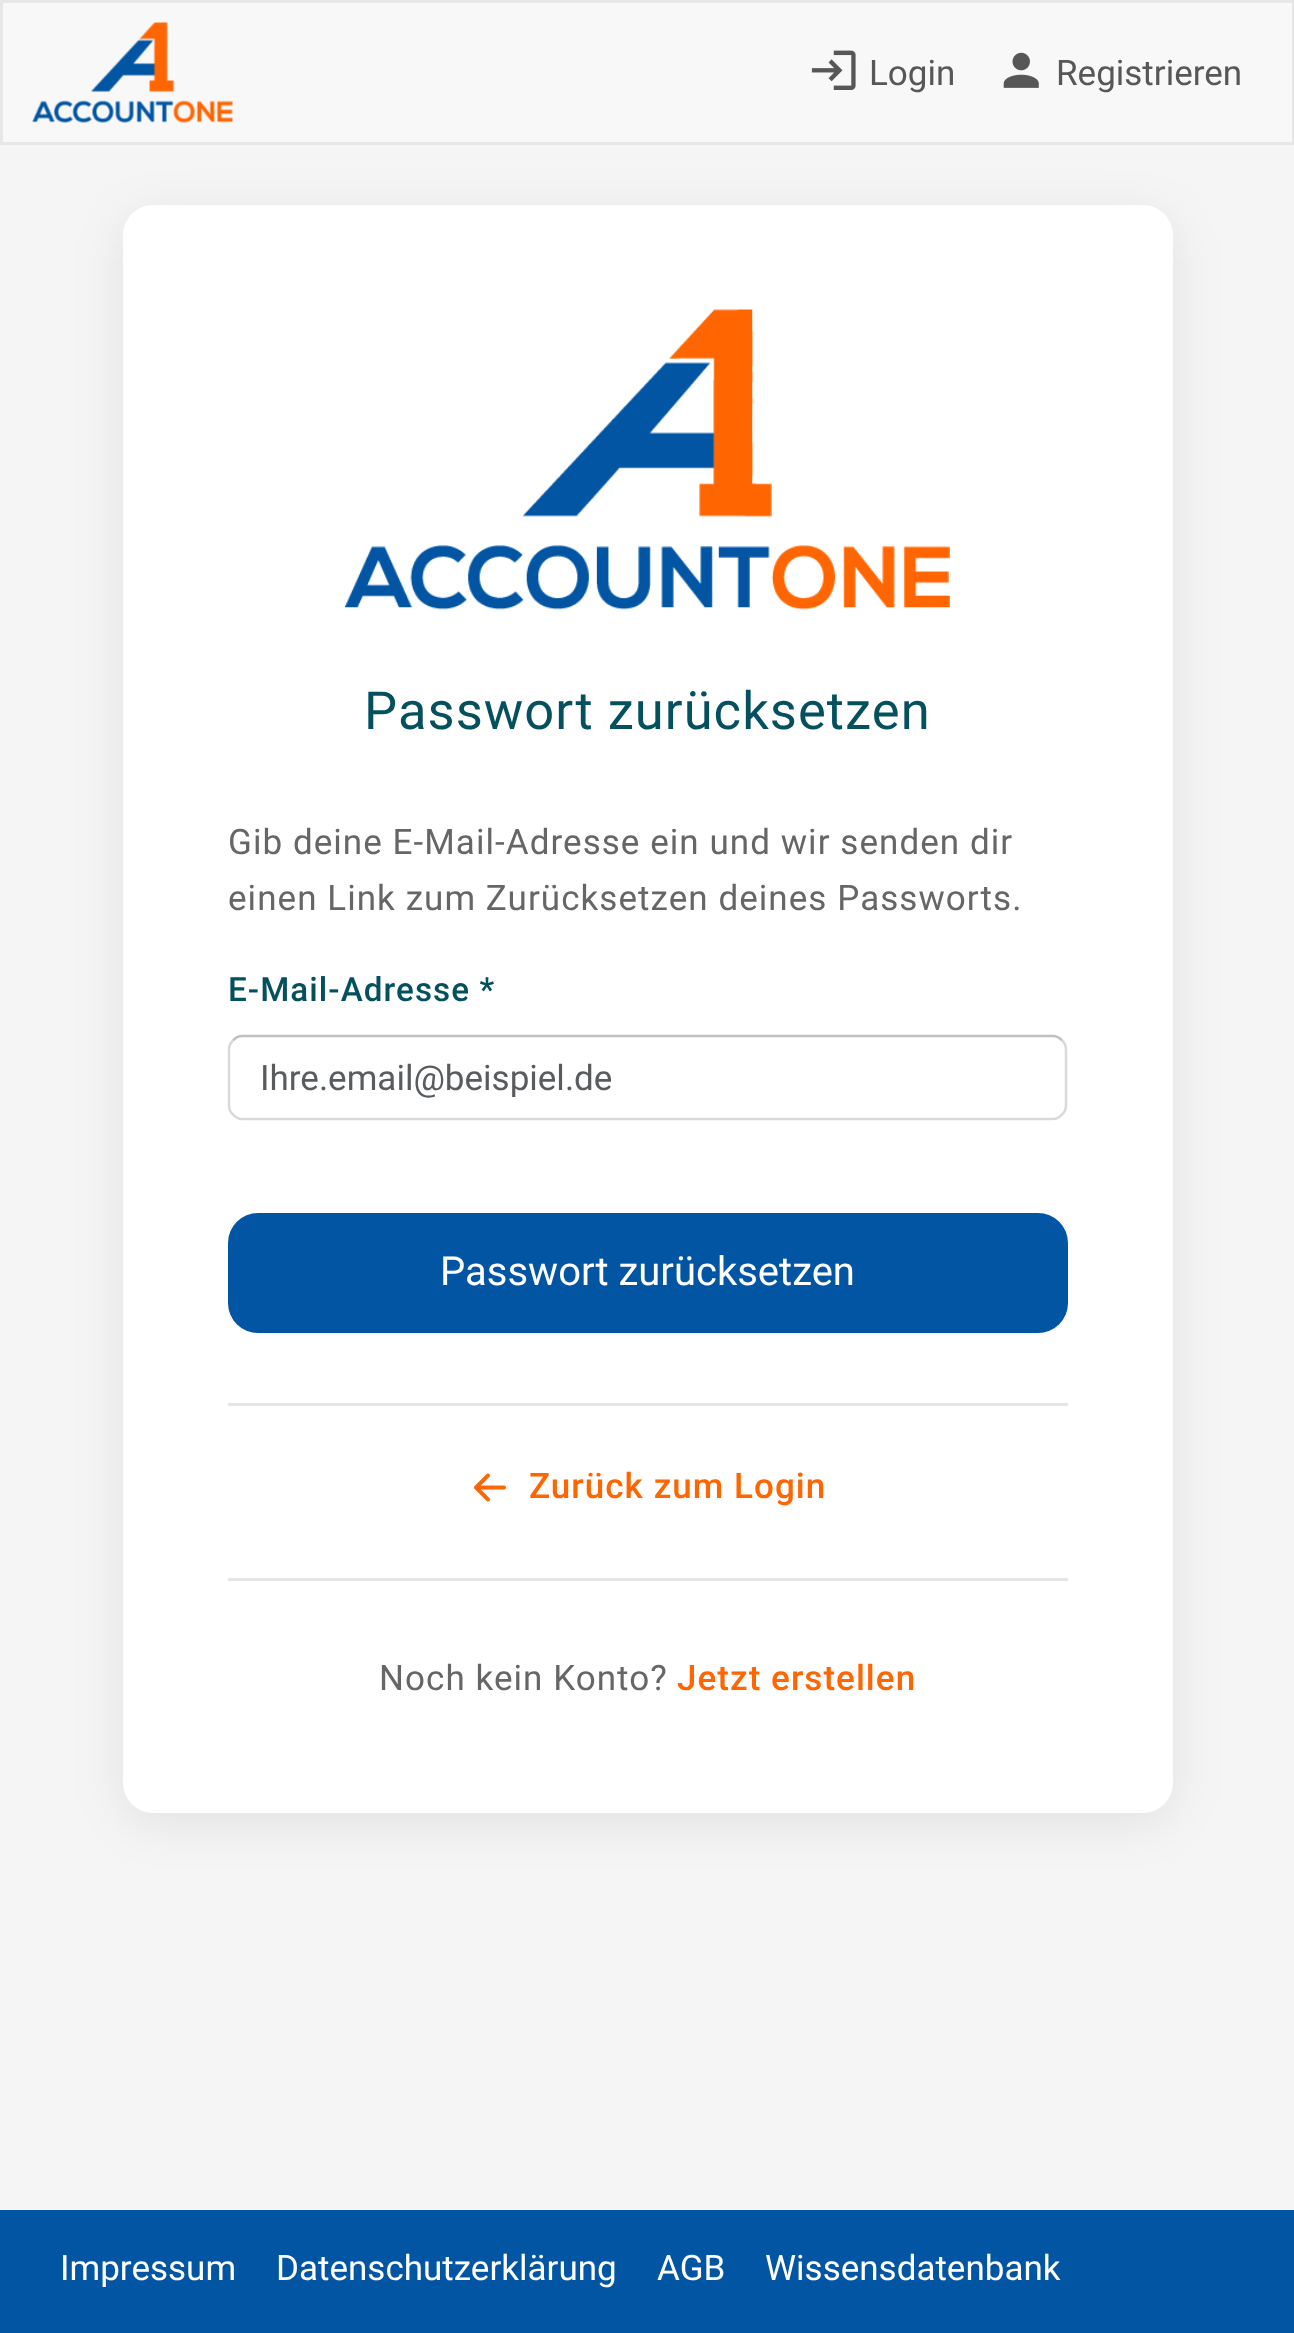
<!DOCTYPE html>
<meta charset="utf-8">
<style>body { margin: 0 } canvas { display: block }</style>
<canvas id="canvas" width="1294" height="2333"></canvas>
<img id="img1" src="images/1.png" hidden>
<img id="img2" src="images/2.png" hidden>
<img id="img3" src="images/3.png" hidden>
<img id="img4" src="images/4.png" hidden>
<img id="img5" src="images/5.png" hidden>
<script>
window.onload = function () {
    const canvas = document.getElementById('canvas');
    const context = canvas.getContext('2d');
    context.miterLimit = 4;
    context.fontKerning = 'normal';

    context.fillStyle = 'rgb(245, 245, 245)';
    context.fillRect(0, 0, 1294, 2333);
    context.fillStyle = 'rgba(0, 0, 0, 0.08)';
    context.filter = 'blur(25px)';
    context.beginPath();
    context.roundRect(123, 215, 1050, 1608, 30);
    context.fill();
    context.filter = 'none';
    context.fillStyle = 'rgb(248, 248, 248)';
    context.beginPath();
    context.rect(1.5, 1.5, 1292, 142);
    context.fill();
    context.strokeStyle = 'rgb(231, 231, 231)';
    context.lineWidth = 3;
    context.stroke();
    context.drawImage(document.getElementById('img1'), 32, 22, 201, 101);
    context.drawImage(document.getElementById('img2'), 811, 50, 45, 40);
    context.drawImage(document.getElementById('img3'), 1003, 52, 36, 36);
    context.fillStyle = 'rgb(255, 255, 255)';
    context.beginPath();
    context.roundRect(123, 205, 1050, 1608, 30);
    context.fill();
    context.drawImage(document.getElementById('img4'), 345, 309, 605, 301);
    context.beginPath();
    context.moveTo(233, 1040.5);
    context.bezierCurveTo(235.5, 1037.5, 239, 1036, 242.5, 1036);
    context.lineTo(1052.5, 1036);
    context.bezierCurveTo(1056, 1036, 1059.5, 1037.5, 1062, 1040.5);
    context.strokeStyle = 'rgb(192, 192, 192)';
    context.lineWidth = 2.5;
    context.stroke();
    context.beginPath();
    context.moveTo(1062, 1040.5);
    context.bezierCurveTo(1065, 1043, 1066, 1046.5, 1066, 1050);
    context.lineTo(1066, 1105);
    context.bezierCurveTo(1066, 1108.5, 1065, 1112, 1062, 1114.5);
    context.bezierCurveTo(1059.5, 1117.5, 1056, 1119, 1052.5, 1119);
    context.lineTo(242.5, 1119);
    context.bezierCurveTo(239, 1119, 235.5, 1117.5, 233, 1114.5);
    context.bezierCurveTo(230, 1112, 229, 1108.5, 229, 1105);
    context.lineTo(229, 1050);
    context.bezierCurveTo(229, 1046.5, 230, 1043, 233, 1040.5);
    context.strokeStyle = 'rgb(217, 217, 217)';
    context.stroke();
    context.fillStyle = 'rgb(2, 85, 163)';
    context.beginPath();
    context.roundRect(228, 1213, 840, 120, 30);
    context.fill();
    context.fillStyle = 'rgb(229, 229, 229)';
    context.fillRect(228, 1403, 840, 3);
    context.drawImage(document.getElementById('img5'), 474, 1473, 32, 29);
    context.fillRect(228, 1578, 840, 3);
    context.fillStyle = 'rgb(2, 85, 163)';
    context.fillRect(0, 2210, 1294, 123);
    context.font = '35px Roboto';
    context.fillStyle = 'rgb(87, 87, 87)';
    context.fillText('Login', 869, 85);
    context.fillText('Registrieren', 1056, 85);
    context.letterSpacing = '1.05px';
    context.font = '52.5px Roboto';
    context.fillStyle = 'rgb(4, 80, 95)';
    context.fillText('Passwort zurücksetzen', 364, 729);
    context.font = '35px Roboto';
    context.fillStyle = 'rgb(102, 102, 102)';
    context.fillText('Gib deine E-Mail-Adresse ein und wir senden dir', 228, 854);
    context.fillText('einen Link zum Zurücksetzen deines Passworts.', 228, 910);
    context.font = '500 33.25px Roboto';
    context.fillStyle = 'rgb(4, 80, 95)';
    context.fillText('E-Mail-Adresse *', 228, 1001);
    context.letterSpacing = '0px';
    context.font = '35px Roboto';
    context.fillStyle = 'rgb(89, 92, 95)';
    context.fillText('Ihre.email@beispiel.de', 260, 1090);
    context.font = '40px Roboto';
    context.fillStyle = 'rgb(255, 255, 255)';
    context.fillText('Passwort zurücksetzen', 440, 1285);
    context.letterSpacing = '1.05px';
    context.font = '500 35px Roboto';
    context.fillStyle = 'rgb(255, 101, 1)';
    context.fillText('Zurück zum Login', 529, 1498);
    context.font = '35px Roboto';
    context.fillStyle = 'rgb(102, 102, 102)';
    context.fillText('Noch kein Konto?', 379, 1690);
    context.font = '500 35px Roboto';
    context.fillStyle = 'rgb(255, 101, 1)';
    context.fillText('Jetzt erstellen', 677, 1690);
    context.letterSpacing = '0px';
    context.font = '35px Roboto';
    context.fillStyle = 'rgb(255, 255, 255)';
    context.fillText('Impressum', 60, 2280);
    context.fillText('Datenschutzerklärung', 276, 2280);
    context.fillText('AGB', 657, 2280);
    context.fillText('Wissensdatenbank', 765, 2280);
};
</script>
